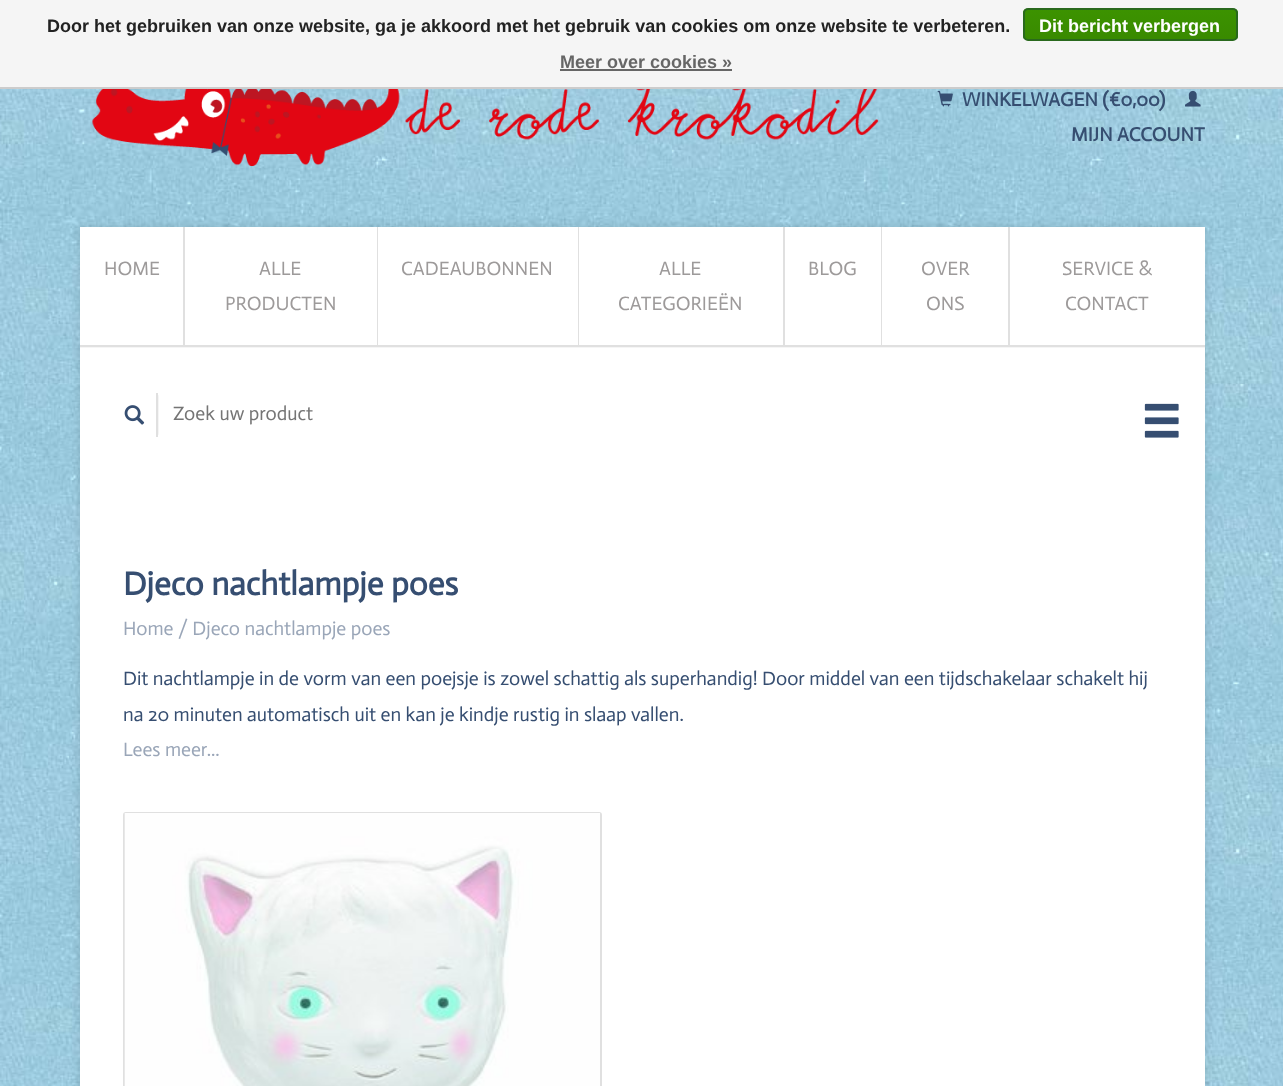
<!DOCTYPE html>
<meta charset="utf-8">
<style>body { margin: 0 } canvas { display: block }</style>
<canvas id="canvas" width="1283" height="1086"></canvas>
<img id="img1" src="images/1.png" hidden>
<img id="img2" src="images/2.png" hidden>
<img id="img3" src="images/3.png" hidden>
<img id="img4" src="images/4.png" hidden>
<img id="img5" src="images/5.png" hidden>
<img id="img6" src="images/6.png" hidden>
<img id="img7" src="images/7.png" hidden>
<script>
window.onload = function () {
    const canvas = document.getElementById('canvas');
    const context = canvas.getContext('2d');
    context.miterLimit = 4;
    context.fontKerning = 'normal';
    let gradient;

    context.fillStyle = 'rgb(255, 255, 255)';
    context.fillRect(0, 0, 1283, 1086);
    context.drawImage(document.getElementById('img1'), 0, 89, 1283, 997);
    context.fillStyle = 'rgb(245, 245, 245)';
    context.fillRect(0, 0, 1283, 87);
    context.fillStyle = 'rgb(204, 204, 204)';
    context.fillRect(0, 87, 1283, 2);
    context.save();
    context.beginPath();
    context.roundRect(1023, 8, 215, 33, 5);
    context.clip();
    gradient = context.createLinearGradient(1130, 9, 1130, 39);
    gradient.addColorStop(0, 'rgb(60, 147, 0)');
    gradient.addColorStop(1, 'rgb(57, 138, 0)');
    context.fillStyle = gradient;
    context.fillRect(1023, 9, 215, 30);
    context.restore();
    context.beginPath();
    context.roundRect(1024, 9, 213, 31, 4);
    context.strokeStyle = 'rgb(41, 105, 29)';
    context.lineWidth = 2;
    context.stroke();
    context.fillStyle = 'rgb(102, 102, 102)';
    context.fillRect(560, 69, 172, 2);
    context.drawImage(document.getElementById('img2'), 92, 89, 787, 77);
    context.drawImage(document.getElementById('img3'), 937, 90, 16, 17);
    context.drawImage(document.getElementById('img4'), 1185, 90, 16, 17);
    context.fillStyle = 'rgba(0, 0, 0, 0.13)';
    context.filter = 'blur(5px)';
    context.beginPath();
    context.roundRect(80, 227, 1125, 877, 3);
    context.fill();
    context.filter = 'none';
    context.fillStyle = 'rgb(255, 255, 255)';
    context.fillRect(80, 227, 1125, 859);
    context.fillStyle = 'rgba(0, 0, 0, 0.04)';
    context.beginPath();
    context.moveTo(80, 346);
    context.lineTo(80, 348);
    context.lineTo(1205, 348);
    context.lineTo(1205, 228);
    context.lineTo(1204, 228);
    context.lineTo(1204, 346);
    context.closePath();
    context.fill();
    context.fillStyle = 'rgb(224, 224, 224)';
    context.fillRect(80, 345, 1125, 2);
    context.fillRect(183, 227, 2, 118);
    context.fillRect(377, 227, 1, 118);
    context.fillRect(578, 227, 1, 118);
    context.fillRect(783, 227, 2, 118);
    context.fillRect(881, 227, 1, 118);
    context.fillRect(1008, 227, 2, 118);
    context.fillStyle = 'rgb(255, 255, 255)';
    context.fillRect(1204, 228, 1, 117);
    context.save();
    context.beginPath();
    context.rect(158, 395, 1, 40);
    context.clip();
    context.fillStyle = 'rgba(0, 0, 0, 0.06)';
    context.filter = 'blur(1px)';
    context.beginPath();
    context.rect(117, 395, 42, 40);
    context.fill();
    context.filter = 'none';
    context.restore();
    context.fillStyle = 'rgb(224, 224, 224)';
    context.fillRect(156, 393, 2, 44);
    context.drawImage(document.getElementById('img5'), 124, 405, 21, 20);
    context.drawImage(document.getElementById('img6'), 1144, 403, 35, 35);
    context.beginPath();
    context.roundRect(124, 813, 477, 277, 2);
    context.strokeStyle = 'rgb(224, 224, 224)';
    context.stroke();
    context.drawImage(document.getElementById('img7'), 124, 813, 476, 273);
    context.font = 'bold 18px Liberation Sans';
    context.fillStyle = 'rgb(34, 34, 34)';
    context.fillText('Door het gebruiken van onze website, ga je akkoord met het gebruik van cookies om onze website te verbeteren.', 47, 32);
    context.fillStyle = 'rgb(255, 255, 255)';
    context.fillText('Dit bericht verbergen', 1039, 32);
    context.fillStyle = 'rgb(102, 102, 102)';
    context.fillText('Meer over cookies »', 560, 68);
    context.font = 'bold 19.5px Actor';
    context.fillStyle = 'rgb(54, 78, 113)';
    context.fillText('WINKELWAGEN (€0,00)', 962, 106);
    context.fillText('MIJN ACCOUNT', 1071, 141);
    context.font = '19.5px Actor';
    context.fillStyle = 'rgb(157, 154, 154)';
    context.fillText('HOME', 104, 275);
    context.fillText('ALLE', 259, 275);
    context.fillText('PRODUCTEN', 225, 310);
    context.fillText('CADEAUBONNEN', 401, 275);
    context.fillText('ALLE', 659, 275);
    context.fillText('CATEGORIEËN', 618, 310);
    context.fillText('BLOG', 808, 275);
    context.fillText('OVER', 921, 275);
    context.fillText('ONS', 926, 310);
    context.fillText('SERVICE &', 1062, 275);
    context.fillText('CONTACT', 1065, 310);
    context.fillStyle = 'rgb(117, 117, 117)';
    context.fillText('Zoek uw product', 173, 420);
    context.font = 'bold 33px Actor';
    context.fillStyle = 'rgb(54, 78, 113)';
    context.fillText('Djeco nachtlampje poes', 123, 595);
    context.font = '19.5px Actor';
    context.fillStyle = 'rgb(154, 166, 184)';
    context.fillText('Home / Djeco nachtlampje poes', 123, 635);
    context.fillStyle = 'rgb(54, 78, 113)';
    context.fillText('Dit nachtlampje in de vorm van een poejsje is zowel schattig als superhandig! Door middel van een tijdschakelaar schakelt hij', 123, 685);
    context.fillText('na 20 minuten automatisch uit en kan je kindje rustig in slaap vallen.', 123, 721);
    context.fillStyle = 'rgb(154, 166, 184)';
    context.fillText('Lees meer...', 123, 756);
};
</script>
